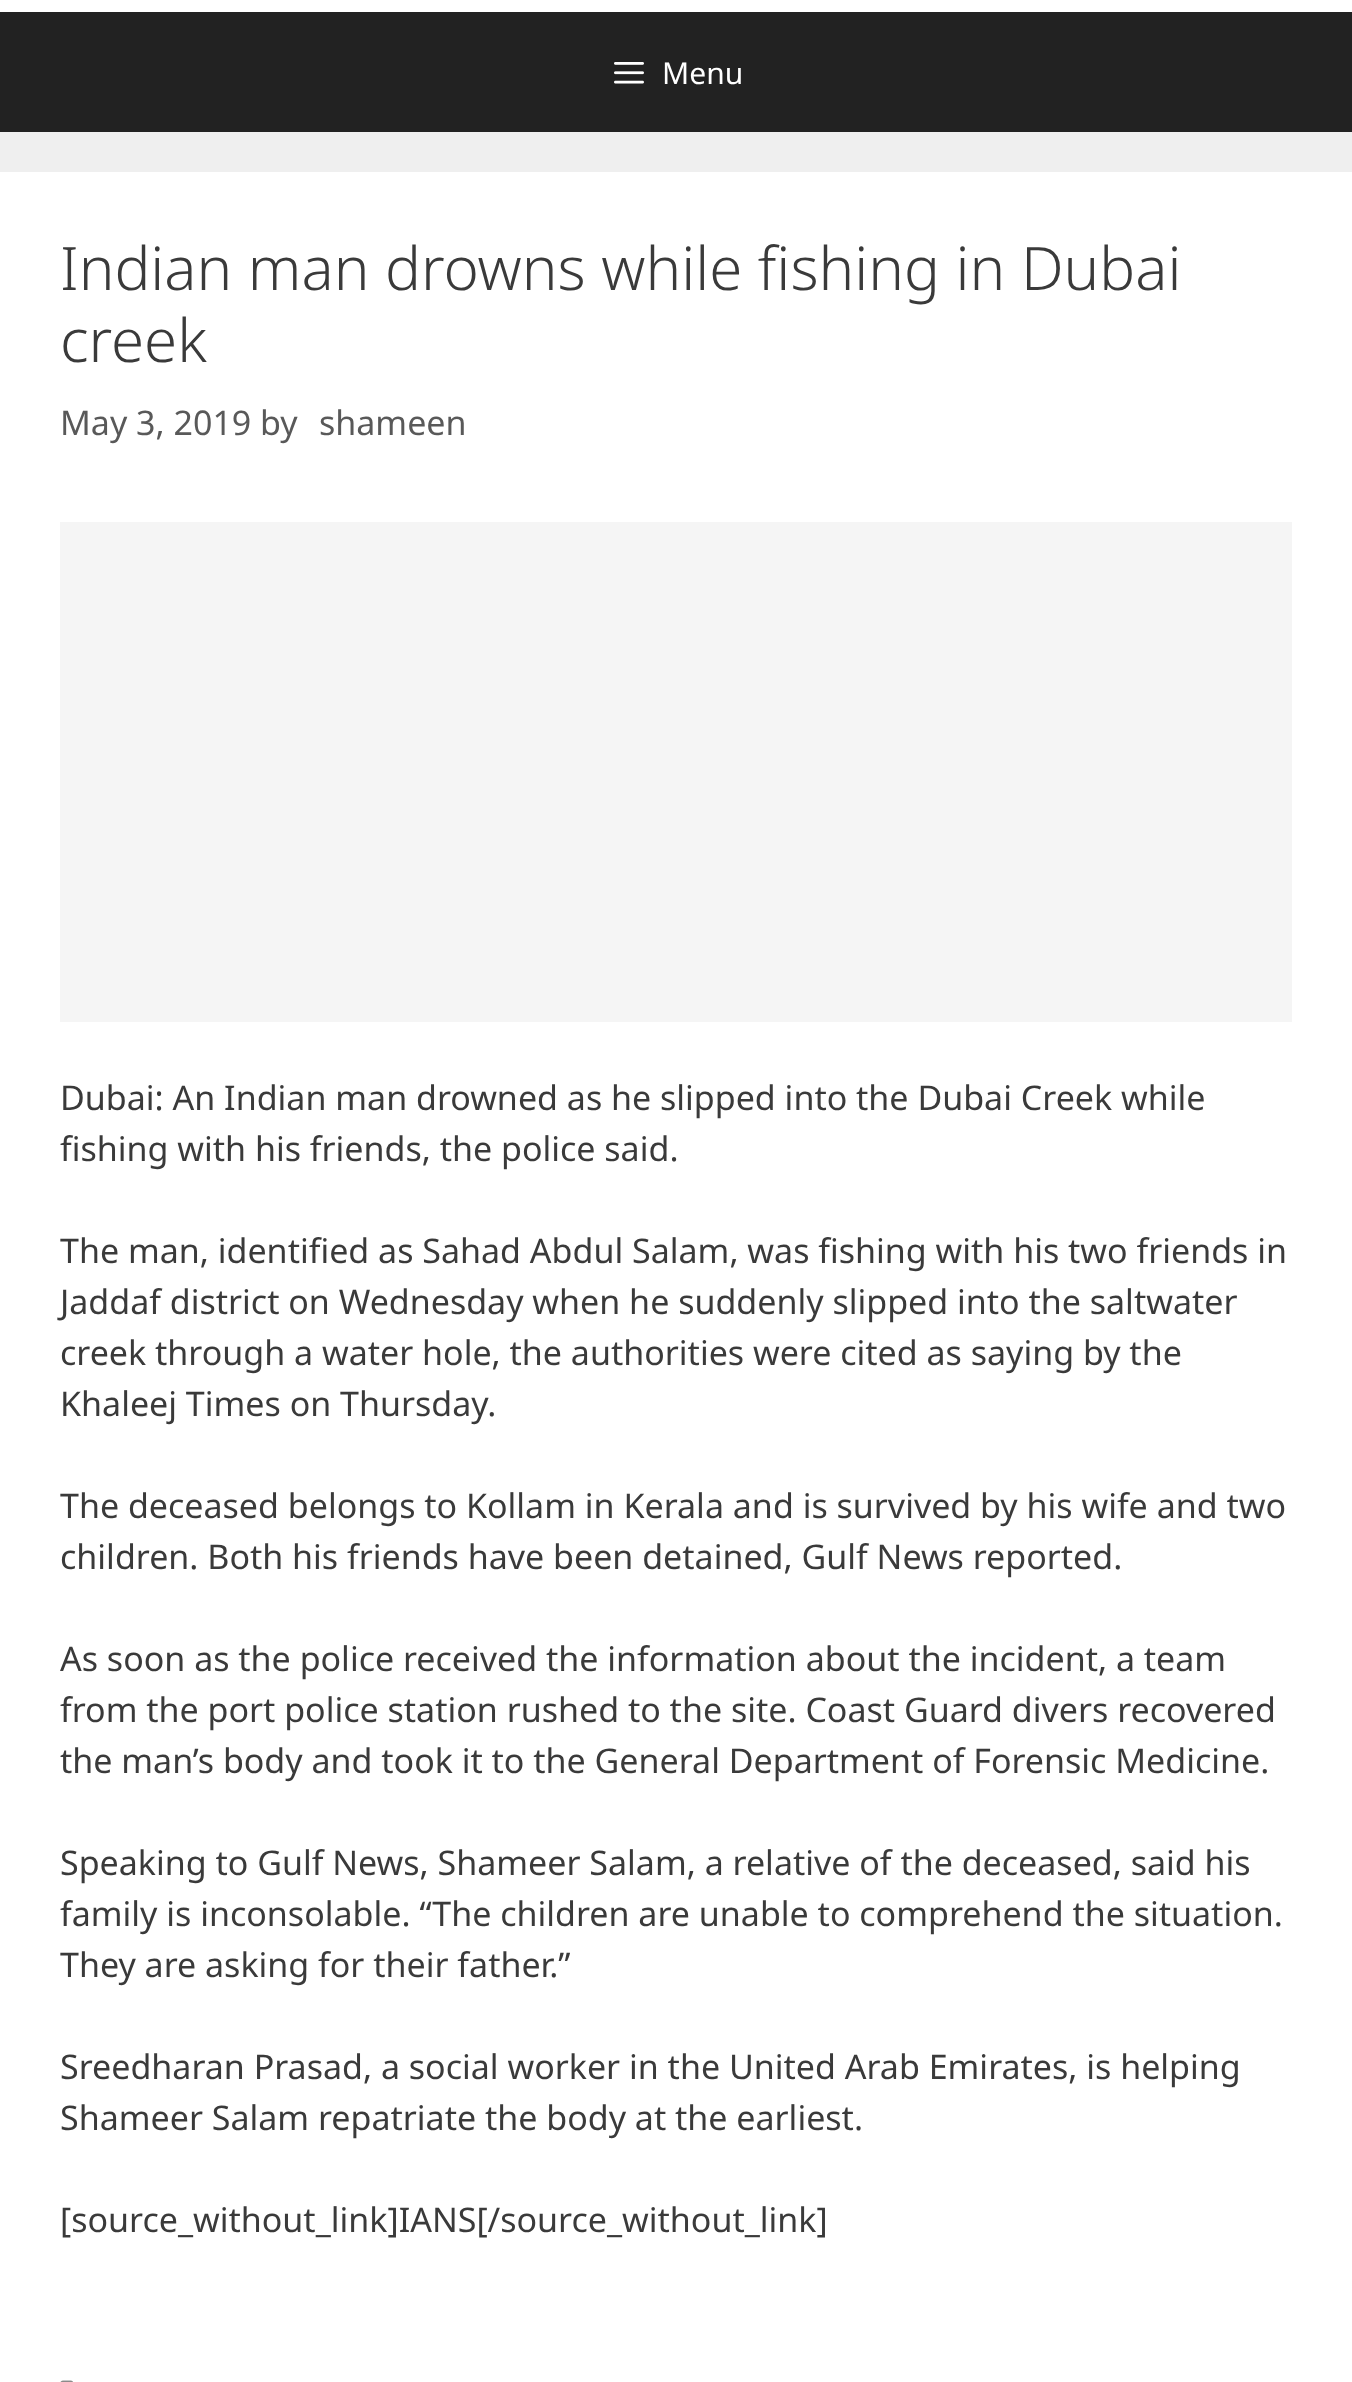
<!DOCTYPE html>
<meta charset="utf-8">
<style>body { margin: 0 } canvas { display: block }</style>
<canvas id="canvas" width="1352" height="2382"></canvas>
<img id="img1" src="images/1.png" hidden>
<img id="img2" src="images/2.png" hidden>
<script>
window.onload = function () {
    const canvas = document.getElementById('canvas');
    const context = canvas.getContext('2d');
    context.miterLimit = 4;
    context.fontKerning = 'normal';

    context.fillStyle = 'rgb(239, 239, 239)';
    context.fillRect(0, 0, 1352, 2382);
    context.fillStyle = 'rgb(255, 255, 255)';
    context.fillRect(0, 0, 1352, 12);
    context.fillStyle = 'rgb(34, 34, 34)';
    context.fillRect(0, 12, 1352, 120);
    context.drawImage(document.getElementById('img1'), 614, 62, 30, 22);
    context.fillStyle = 'rgb(255, 255, 255)';
    context.fillRect(0, 172, 1352, 2210);
    context.fillStyle = 'rgb(245, 245, 245)';
    context.fillRect(60, 522, 1232, 500);
    context.drawImage(document.getElementById('img2'), 60, 2380, 13, 2);
    context.font = '30px Noto Sans';
    context.fillStyle = 'rgb(255, 255, 255)';
    context.fillText('Menu', 662, 84);
    context.font = '300 60px Noto Sans';
    context.fillStyle = 'rgb(58, 58, 58)';
    context.fillText('Indian man drowns while fishing in Dubai', 60, 290);
    context.fillText('creek', 60, 362);
    context.font = '34px Noto Sans';
    context.fillStyle = 'rgb(89, 89, 89)';
    context.fillText('May 3, 2019 by', 60, 435);
    context.fillText('shameen', 319, 435);
    context.fillStyle = 'rgb(58, 58, 58)';
    context.fillText('Dubai: An Indian man drowned as he slipped into the Dubai Creek while', 60, 1110);
    context.fillText('fishing with his friends, the police said.', 60, 1161);
    context.fillText('The man, identified as Sahad Abdul Salam, was fishing with his two friends in', 60, 1263);
    context.fillText('Jaddaf district on Wednesday when he suddenly slipped into the saltwater', 60, 1314);
    context.fillText('creek through a water hole, the authorities were cited as saying by the', 60, 1365);
    context.fillText('Khaleej Times on Thursday.', 60, 1416);
    context.fillText('The deceased belongs to Kollam in Kerala and is survived by his wife and two', 60, 1518);
    context.fillText('children. Both his friends have been detained, Gulf News reported.', 60, 1569);
    context.fillText('As soon as the police received the information about the incident, a team', 60, 1671);
    context.fillText('from the port police station rushed to the site. Coast Guard divers recovered', 60, 1722);
    context.fillText('the man’s body and took it to the General Department of Forensic Medicine.', 60, 1773);
    context.fillText('Speaking to Gulf News, Shameer Salam, a relative of the deceased, said his', 60, 1875);
    context.fillText('family is inconsolable. “The children are unable to comprehend the situation.', 60, 1926);
    context.fillText('They are asking for their father.”', 60, 1977);
    context.fillText('Sreedharan Prasad, a social worker in the United Arab Emirates, is helping', 60, 2079);
    context.fillText('Shameer Salam repatriate the body at the earliest.', 60, 2130);
    context.fillText('[source_without_link]IANS[/source_without_link]', 60, 2232);
};
</script>
